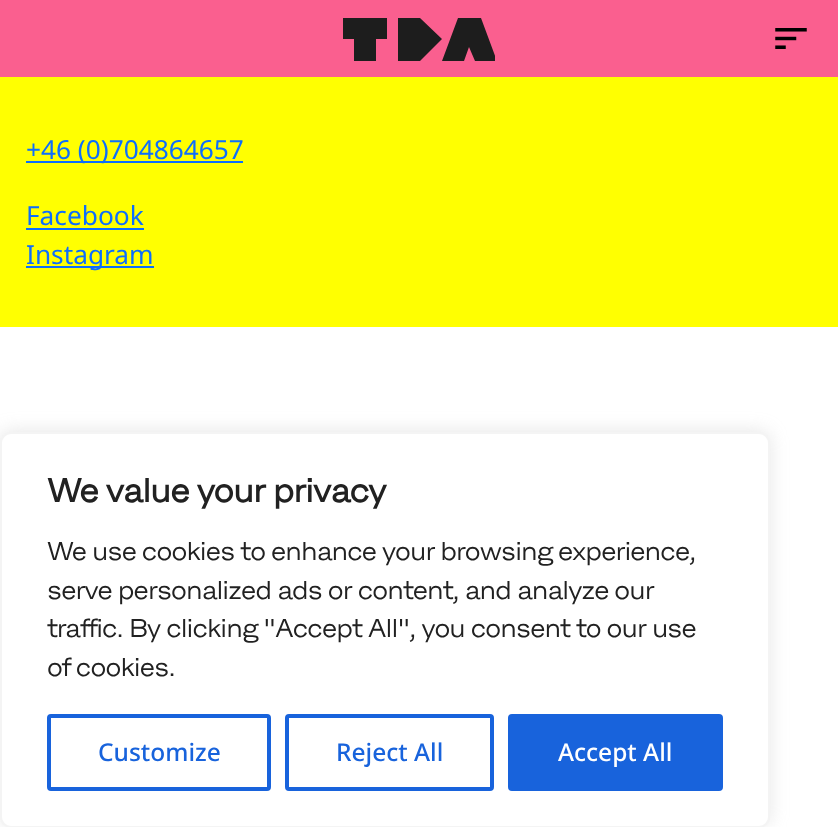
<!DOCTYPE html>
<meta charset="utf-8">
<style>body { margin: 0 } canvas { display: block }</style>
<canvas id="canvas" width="838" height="827"></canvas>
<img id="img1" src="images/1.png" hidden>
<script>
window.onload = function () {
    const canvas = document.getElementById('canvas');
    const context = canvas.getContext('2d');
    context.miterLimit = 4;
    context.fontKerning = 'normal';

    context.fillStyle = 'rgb(255, 255, 255)';
    context.fillRect(0, 0, 838, 827);
    context.fillStyle = 'rgb(250, 95, 143)';
    context.fillRect(0, 0, 838, 77);
    context.save();
    context.beginPath();
    context.rect(343, 18, 152, 43);
    context.clip();
    context.fillStyle = 'rgb(29, 29, 29)';
    context.beginPath();
    context.moveTo(497, 61);
    context.lineTo(475, 61);
    context.lineTo(469, 47);
    context.lineTo(464, 61);
    context.lineTo(442, 61);
    context.lineTo(458, 18);
    context.lineTo(481, 18);
    context.closePath();
    context.moveTo(420, 18);
    context.lineTo(442, 39);
    context.lineTo(420, 61);
    context.lineTo(398, 61);
    context.lineTo(398, 18);
    context.closePath();
    context.moveTo(343, 18);
    context.lineTo(387, 18);
    context.lineTo(387, 39);
    context.lineTo(376, 39);
    context.lineTo(376, 61);
    context.lineTo(354, 61);
    context.lineTo(354, 39);
    context.lineTo(343, 39);
    context.closePath();
    context.fill();
    context.restore();
    context.drawImage(document.getElementById('img1'), 775, 28, 32, 21);
    context.fillStyle = 'rgb(255, 255, 1)';
    context.fillRect(0, 77, 838, 250);
    context.fillStyle = 'rgb(13, 110, 253)';
    context.fillRect(26, 161, 217, 2);
    context.fillRect(26, 228, 118, 2);
    context.fillRect(26, 266, 128, 2);
    context.fillStyle = 'rgba(172, 171, 171, 0.3)';
    context.filter = 'blur(9px)';
    context.beginPath();
    context.roundRect(0, 431, 770, 395, 11);
    context.fill();
    context.filter = 'none';
    context.fillStyle = 'rgb(255, 255, 255)';
    context.beginPath();
    context.roundRect(1, 433, 768, 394, 10);
    context.fill();
    context.strokeStyle = 'rgb(244, 244, 244)';
    context.lineWidth = 2;
    context.stroke();
    context.beginPath();
    context.roundRect(49, 716, 220, 73, 2);
    context.strokeStyle = 'rgb(24, 99, 220)';
    context.lineWidth = 4;
    context.stroke();
    context.beginPath();
    context.roundRect(287, 716, 205, 73, 2);
    context.stroke();
    context.fillStyle = 'rgb(24, 99, 220)';
    context.beginPath();
    context.roundRect(510, 716, 211, 73, 2);
    context.fill();
    context.stroke();
    context.font = '26.25px Noto Sans';
    context.fillStyle = 'rgb(13, 110, 253)';
    context.fillText('+46 (0)704864657', 26, 159);
    context.fillText('Facebook', 26, 225);
    context.fillText('Instagram', 26, 264);
    context.letterSpacing = '-0.88px';
    context.font = 'bold 31.5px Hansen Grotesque';
    context.fillStyle = 'rgb(33, 33, 33)';
    context.fillText('We value your privacy', 47, 502);
    context.font = '24.5px Hansen Grotesque';
    context.fillText('We use cookies to enhance your browsing experience,', 47, 560);
    context.fillText('serve personalized ads or content, and analyze our', 47, 599);
    context.fillText('traffic. By clicking "Accept All", you consent to our use', 47, 637);
    context.fillText('of cookies.', 47, 676);
    context.letterSpacing = '0px';
    context.font = '500 24.5px Noto Sans';
    context.fillStyle = 'rgb(24, 99, 220)';
    context.fillText('Customize', 98, 761);
    context.fillText('Reject All', 336, 761);
    context.fillStyle = 'rgb(255, 255, 255)';
    context.fillText('Accept All', 558, 761);
};
</script>
